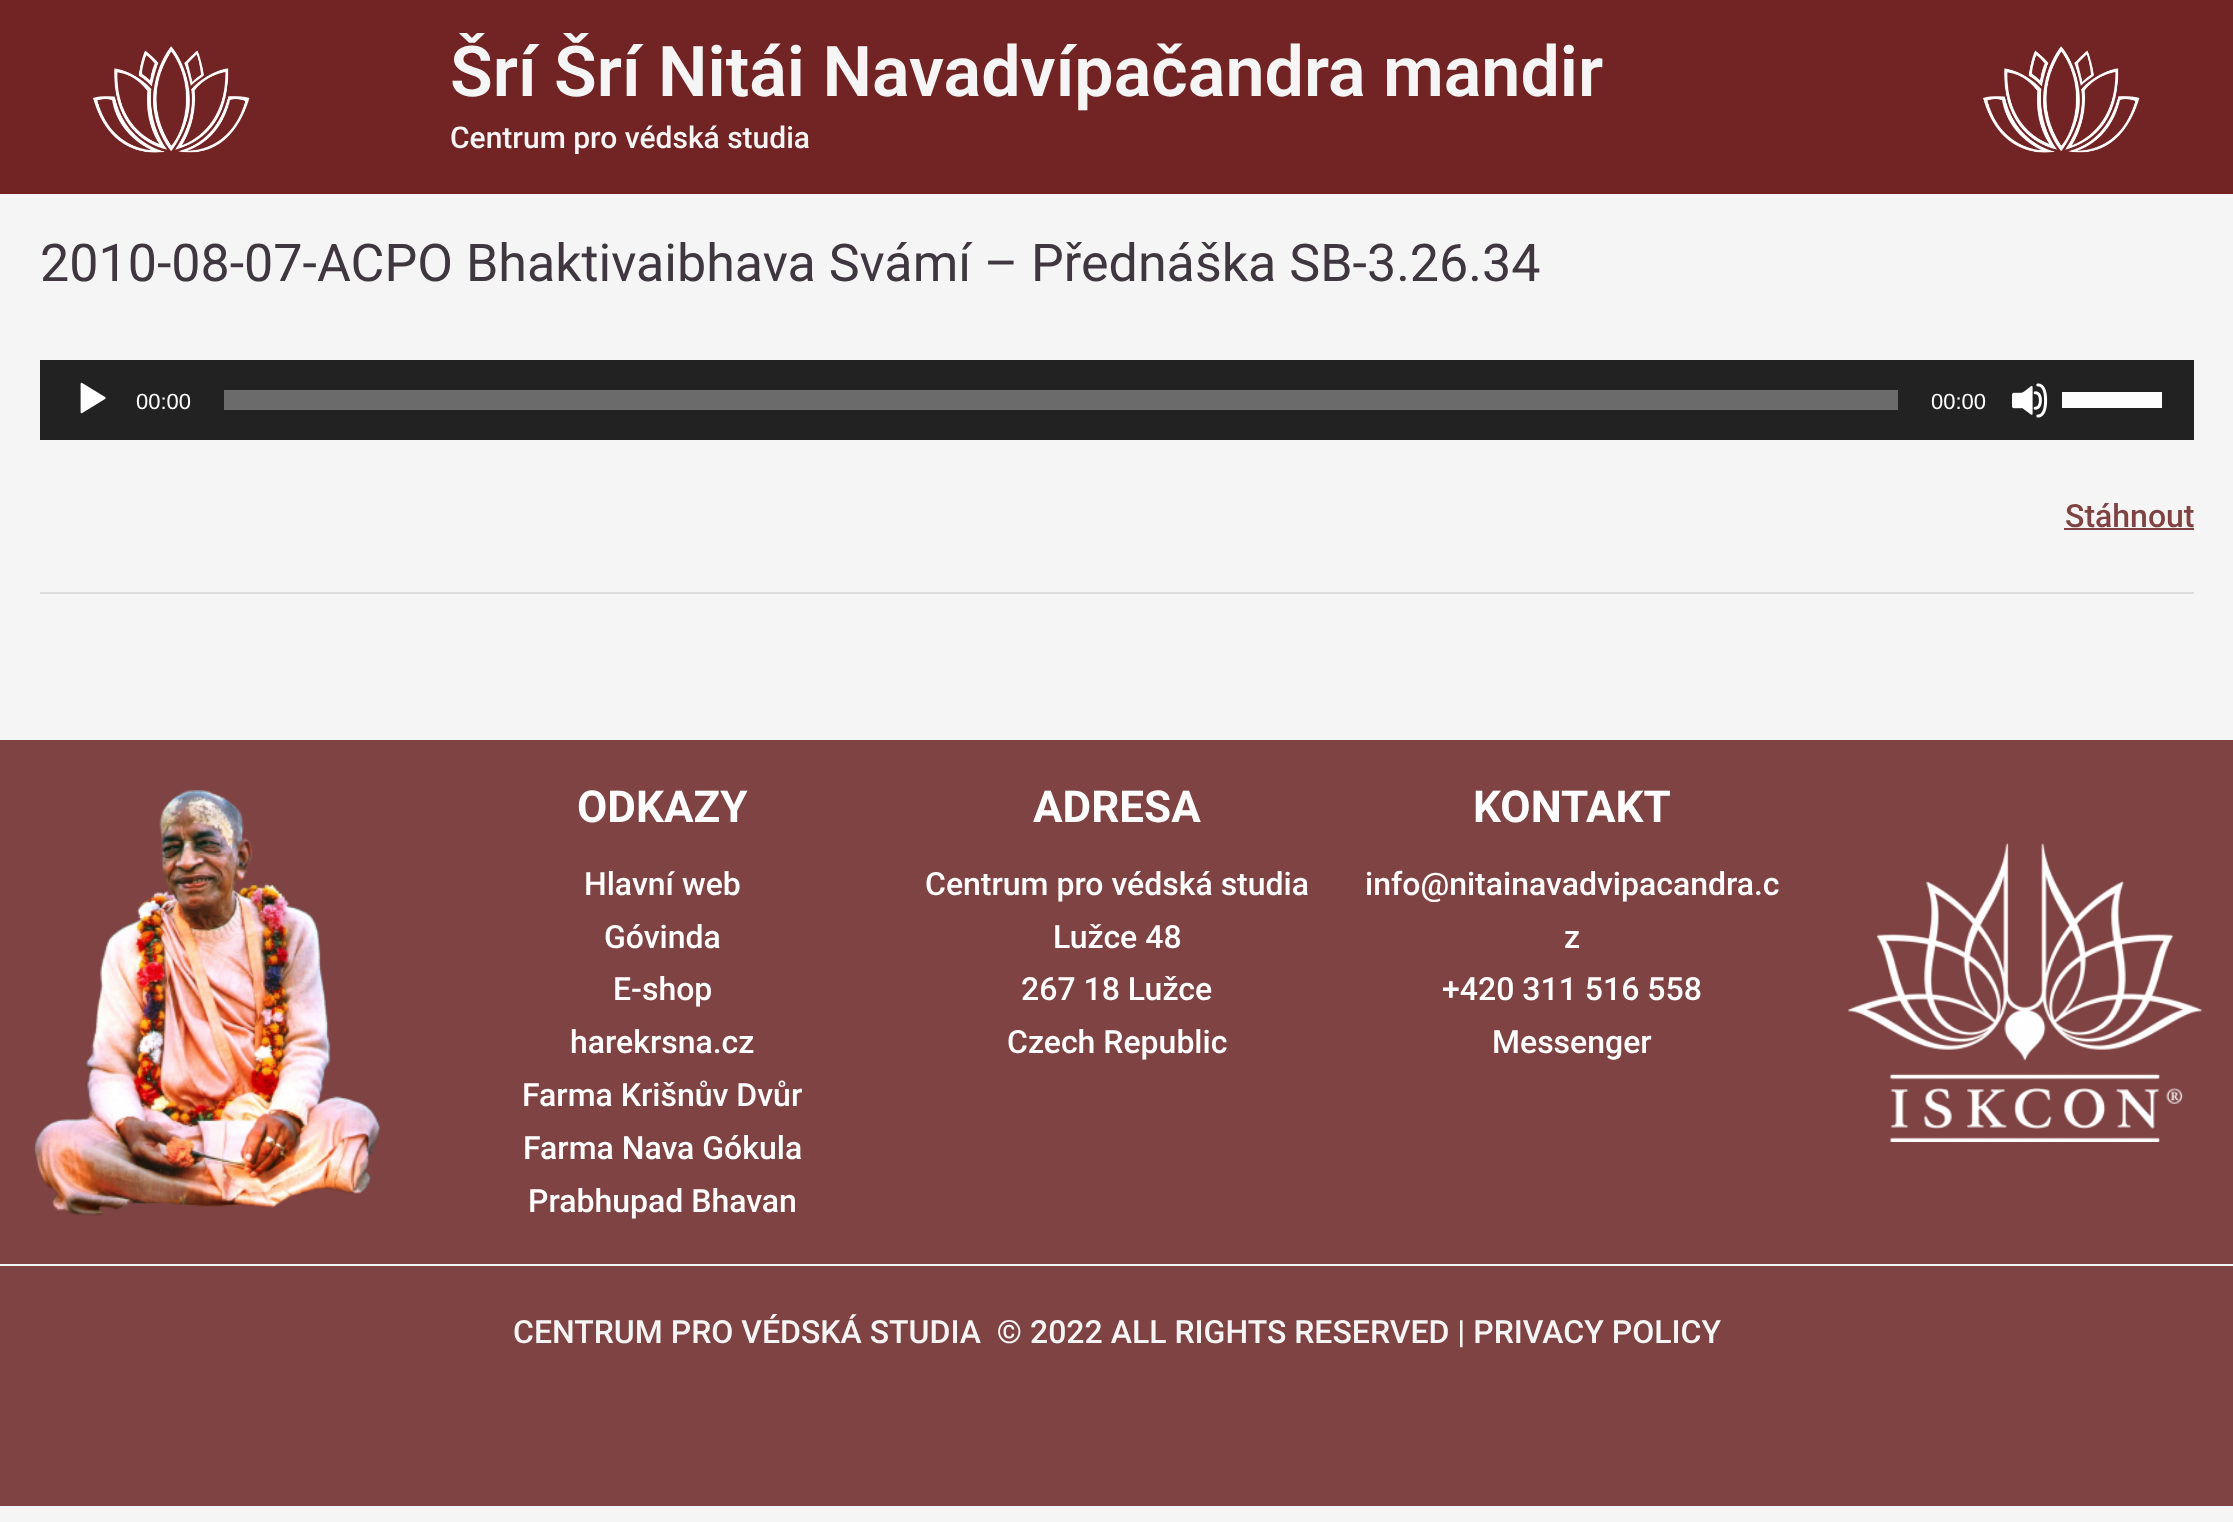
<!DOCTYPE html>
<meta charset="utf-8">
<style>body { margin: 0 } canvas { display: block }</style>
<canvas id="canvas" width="2233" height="1522"></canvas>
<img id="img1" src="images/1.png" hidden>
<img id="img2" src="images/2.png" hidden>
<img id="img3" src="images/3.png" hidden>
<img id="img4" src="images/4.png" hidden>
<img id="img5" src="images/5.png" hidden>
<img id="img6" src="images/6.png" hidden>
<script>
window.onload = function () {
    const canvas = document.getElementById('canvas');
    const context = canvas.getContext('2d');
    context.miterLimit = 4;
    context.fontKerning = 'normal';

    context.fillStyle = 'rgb(245, 245, 245)';
    context.fillRect(0, 0, 2233, 1522);
    context.fillStyle = 'rgb(114, 35, 35)';
    context.fillRect(0, 0, 2233, 194);
    context.drawImage(document.getElementById('img1'), 93, 46, 157, 107);
    context.drawImage(document.getElementById('img2'), 1983, 46, 157, 107);
    context.fillStyle = 'rgb(34, 34, 34)';
    context.fillRect(40, 360, 2154, 80);
    context.drawImage(document.getElementById('img3'), 80, 382, 26, 32);
    context.fillStyle = 'rgb(107, 107, 107)';
    context.fillRect(224, 390, 1674, 20);
    context.drawImage(document.getElementById('img4'), 2012, 383, 36, 35);
    context.fillStyle = 'rgb(255, 255, 255)';
    context.fillRect(2062, 392, 100, 16);
    context.fillStyle = 'rgb(127, 67, 67)';
    context.fillRect(2064, 528, 130, 2);
    context.fillStyle = 'rgb(221, 221, 221)';
    context.fillRect(40, 592, 2154, 2);
    context.fillStyle = 'rgb(127, 67, 67)';
    context.fillRect(0, 740, 2233, 766);
    context.drawImage(document.getElementById('img5'), 33, 790, 347, 426);
    context.drawImage(document.getElementById('img6'), 1847, 843, 356, 299);
    context.fillStyle = 'rgb(242, 245, 247)';
    context.fillRect(0, 1264, 2233, 2);
    context.font = '600 70px Roboto';
    context.fillStyle = 'rgb(245, 245, 245)';
    context.fillText('Šrí Šrí Nitái Navadvípačandra mandir', 450, 96);
    context.font = '500 30px Roboto';
    context.fillText('Centrum pro védská studia', 450, 148);
    context.font = '52px Roboto';
    context.fillStyle = 'rgb(63, 54, 64)';
    context.fillText('2010-08-07-ACPO Bhaktivaibhava Svámí – Přednáška SB-3.26.34', 40, 281);
    context.font = '22px Liberation Sans';
    context.fillStyle = 'rgb(255, 255, 255)';
    context.fillText('00:00', 136, 409);
    context.fillText('00:00', 1931, 409);
    context.font = '500 32px Roboto';
    context.fillStyle = 'rgb(127, 67, 67)';
    context.fillText('Stáhnout', 2065, 527);
    context.font = 'bold 44px Roboto';
    context.fillStyle = 'rgb(255, 255, 255)';
    context.fillText('ODKAZY', 577, 822);
    context.font = '500 32px Roboto';
    context.fillText('Hlavní web', 584, 895);
    context.fillText('Góvinda', 604, 948);
    context.fillText('E-shop', 613, 1000);
    context.fillText('harekrsna.cz', 570, 1053);
    context.fillText('Farma Krišnův Dvůr', 522, 1106);
    context.fillText('Farma Nava Gókula', 523, 1159);
    context.fillText('Prabhupad Bhavan', 528, 1212);
    context.font = 'bold 44px Roboto';
    context.fillText('ADRESA', 1033, 822);
    context.font = '500 32px Roboto';
    context.fillText('Centrum pro védská studia', 925, 895);
    context.fillText('Lužce 48', 1053, 948);
    context.fillText('267 18 Lužce', 1021, 1000);
    context.fillText('Czech Republic', 1007, 1053);
    context.font = 'bold 44px Roboto';
    context.fillText('KONTAKT', 1473, 822);
    context.font = '500 32px Roboto';
    context.fillText('info@nitainavadvipacandra.c', 1365, 895);
    context.fillText('z', 1564, 948);
    context.fillText('+420 311 516 558', 1442, 1000);
    context.fillText('Messenger', 1492, 1053);
    context.fillStyle = 'rgb(245, 245, 245)';
    context.fillText('CENTRUM PRO VÉDSKÁ STUDIA  © 2022 ALL RIGHTS RESERVED | PRIVACY POLICY', 513, 1343);
};
</script>
